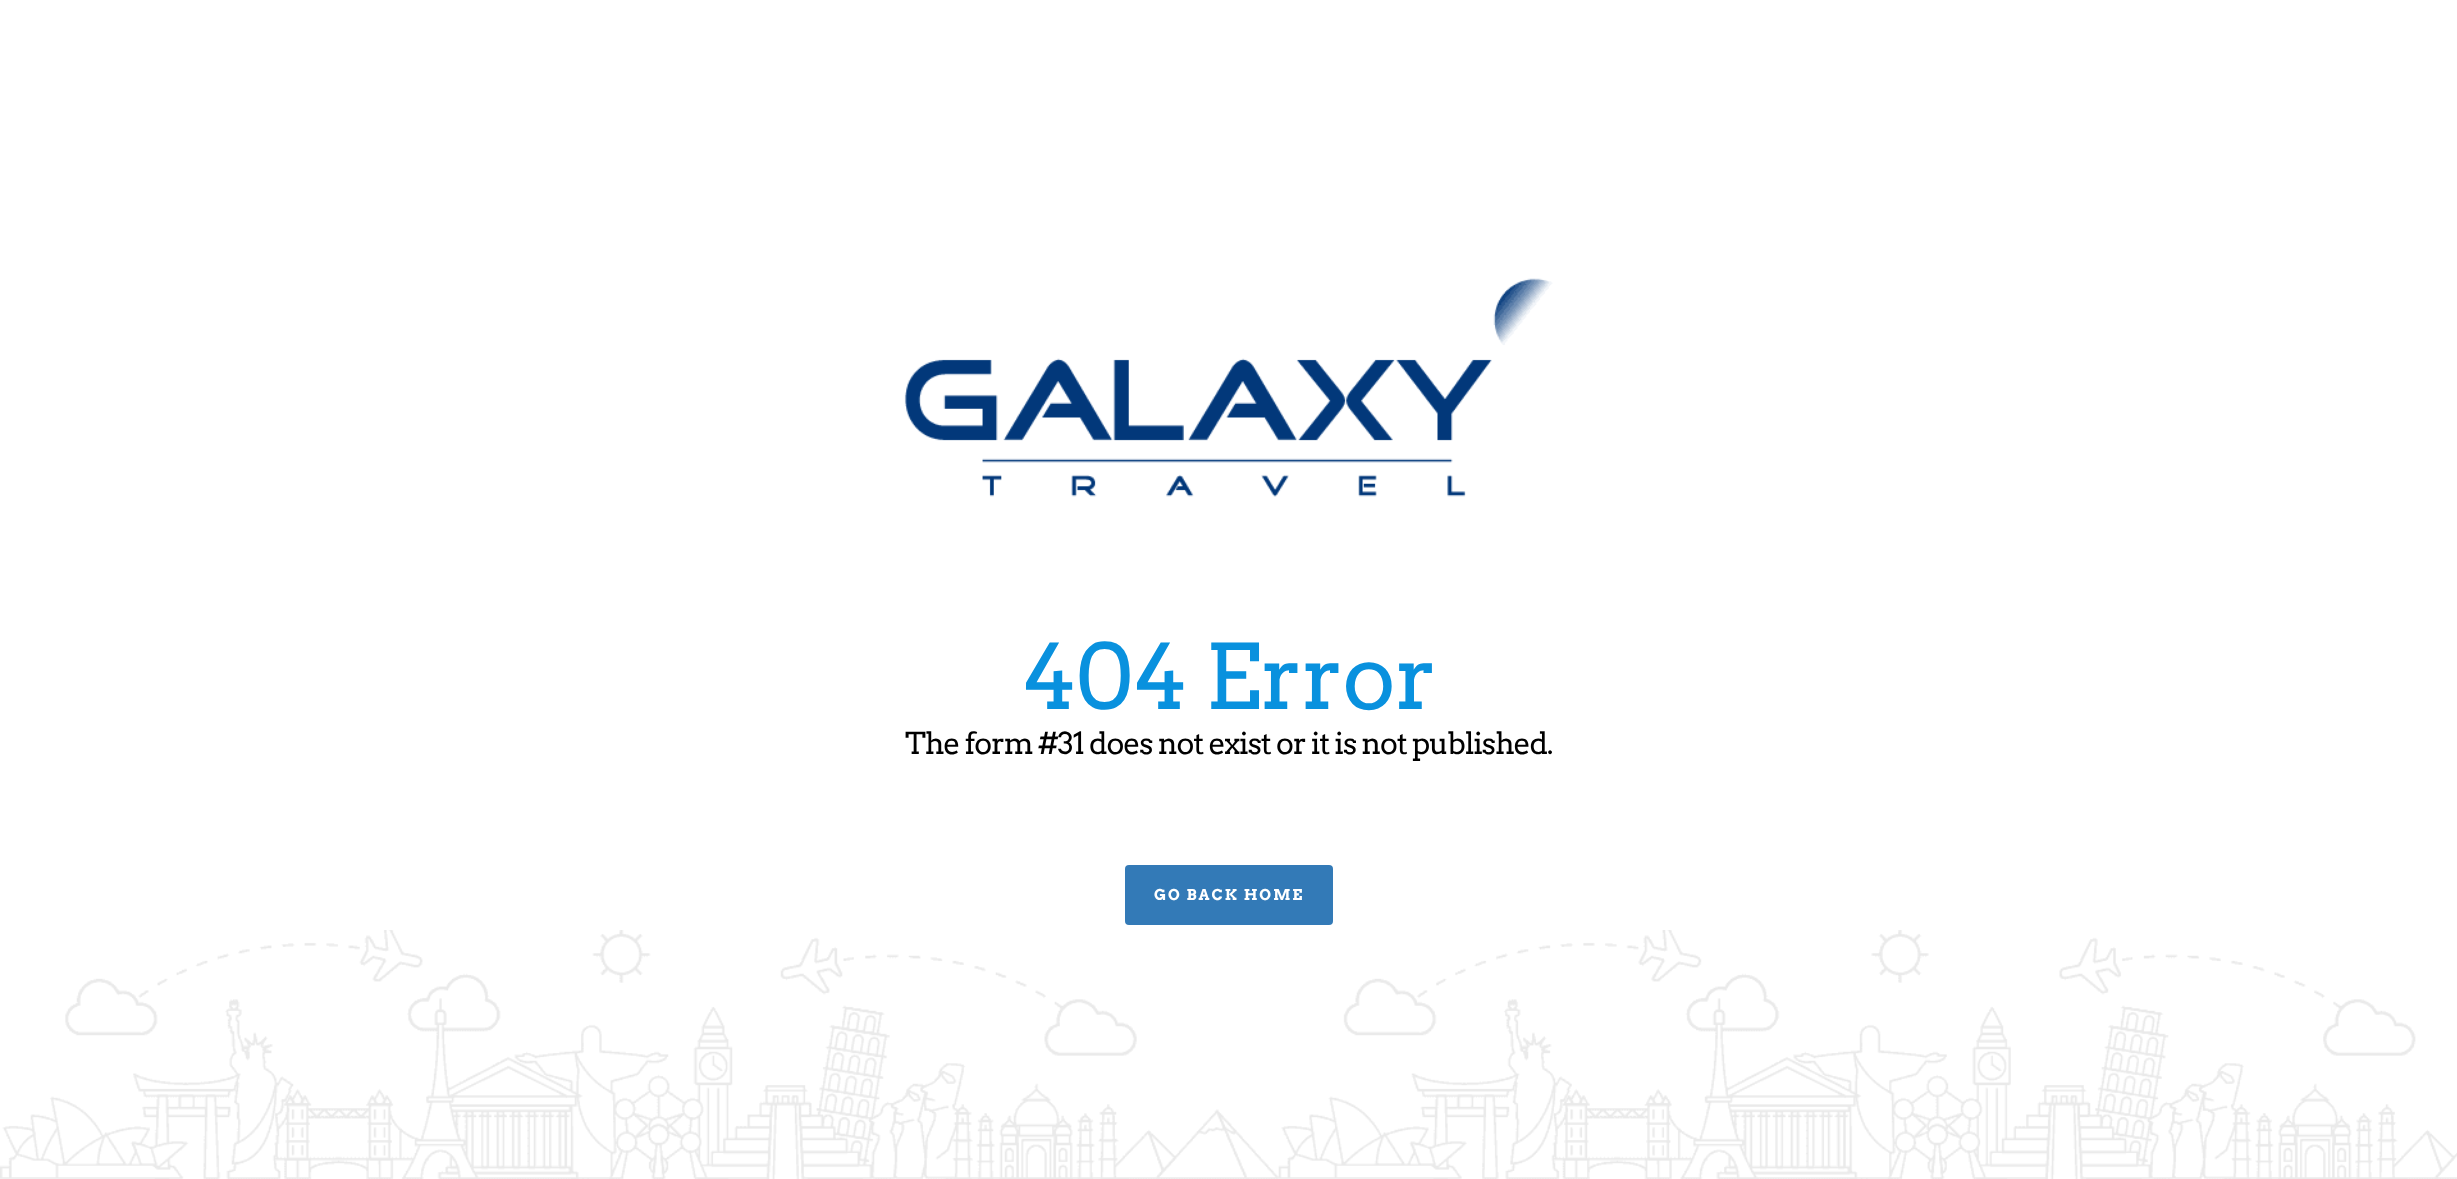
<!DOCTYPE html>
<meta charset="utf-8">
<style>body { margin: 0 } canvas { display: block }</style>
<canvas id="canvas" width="2457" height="1179"></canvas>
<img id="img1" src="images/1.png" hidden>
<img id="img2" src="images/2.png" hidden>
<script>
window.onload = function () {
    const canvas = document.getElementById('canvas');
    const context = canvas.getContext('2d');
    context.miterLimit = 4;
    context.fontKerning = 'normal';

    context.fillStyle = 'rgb(255, 255, 255)';
    context.fillRect(0, 0, 2457, 1179);
    context.drawImage(document.getElementById('img1'), 904, 278, 649, 219);
    context.fillStyle = 'rgb(51, 122, 183)';
    context.beginPath();
    context.roundRect(1125, 865, 208, 60, 4);
    context.fill();
    context.drawImage(document.getElementById('img2'), 0, 930, 2457, 249);
    context.letterSpacing = '-1.25px';
    context.font = '90px Arvo';
    context.fillStyle = 'rgb(9, 145, 222)';
    context.fillText('404 Error', 1022, 709);
    context.font = '30px Arvo';
    context.fillStyle = 'rgb(0, 0, 0)';
    context.fillText('The form #31 does not exist or it is not published.', 905, 754);
    context.letterSpacing = '1.9px';
    context.font = 'bold 15px Arvo';
    context.fillStyle = 'rgb(255, 255, 255)';
    context.fillText('GO BACK HOME', 1154, 900);
};
</script>
